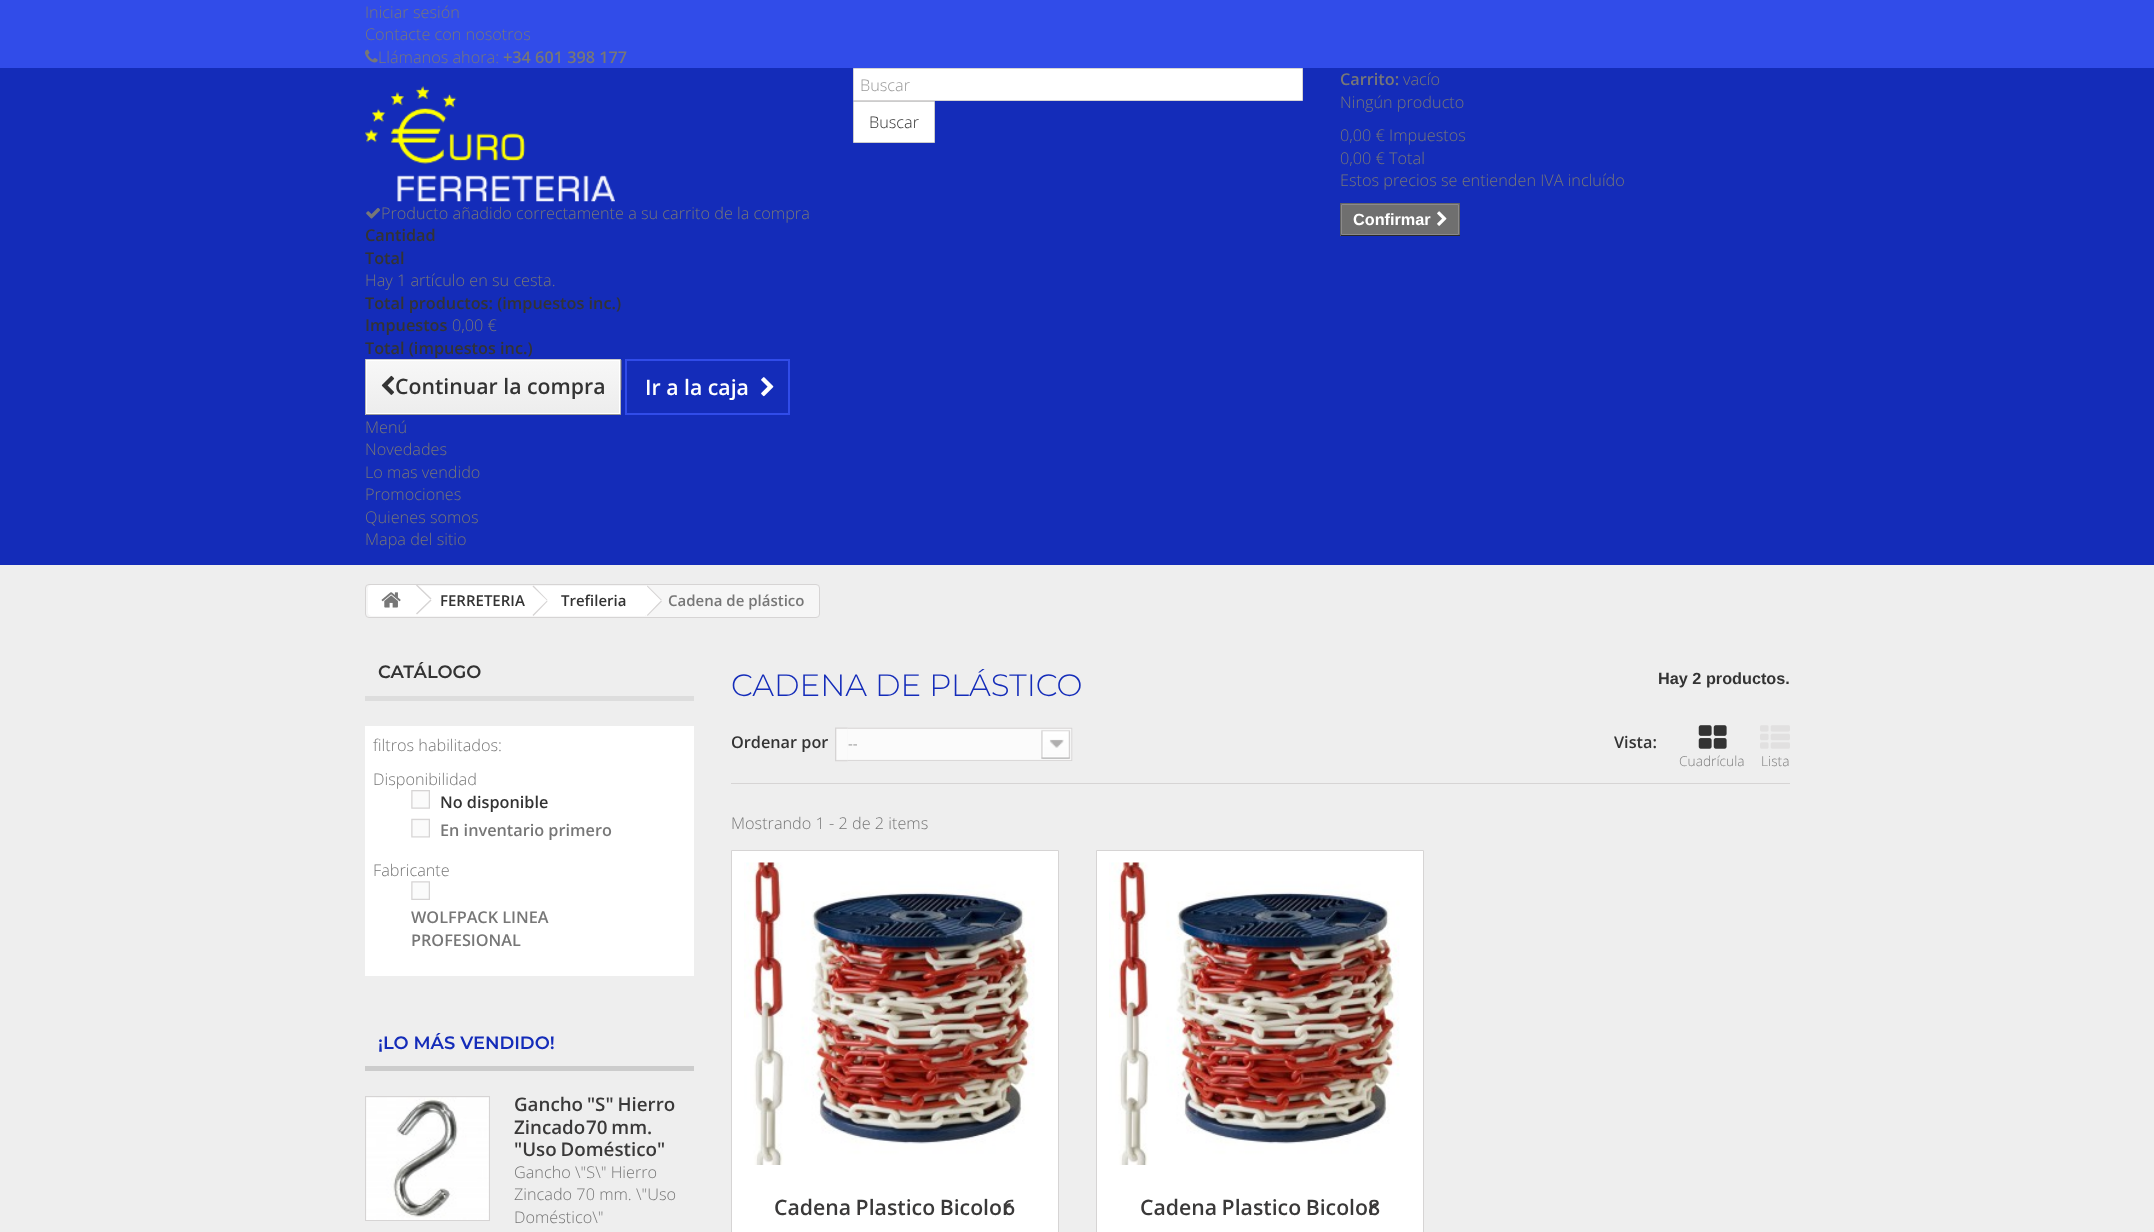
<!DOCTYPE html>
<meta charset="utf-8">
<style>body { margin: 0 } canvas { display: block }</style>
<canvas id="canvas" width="2154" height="1232"></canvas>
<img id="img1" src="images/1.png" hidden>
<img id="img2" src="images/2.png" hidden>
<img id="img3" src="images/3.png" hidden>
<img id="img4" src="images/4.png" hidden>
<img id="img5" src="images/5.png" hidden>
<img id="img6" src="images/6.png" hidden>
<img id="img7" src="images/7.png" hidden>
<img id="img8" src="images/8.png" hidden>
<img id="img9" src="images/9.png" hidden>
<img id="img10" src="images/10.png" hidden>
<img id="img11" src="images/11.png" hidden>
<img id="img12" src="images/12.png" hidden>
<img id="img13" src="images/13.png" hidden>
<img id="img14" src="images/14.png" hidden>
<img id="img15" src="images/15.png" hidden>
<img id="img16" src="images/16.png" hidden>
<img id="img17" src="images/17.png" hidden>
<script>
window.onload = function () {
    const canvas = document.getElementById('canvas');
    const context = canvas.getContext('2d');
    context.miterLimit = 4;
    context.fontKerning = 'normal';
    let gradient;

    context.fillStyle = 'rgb(238, 238, 238)';
    context.fillRect(0, 0, 2154, 1232);
    context.fillStyle = 'rgb(20, 44, 185)';
    context.fillRect(0, 68, 2154, 497);
    context.fillStyle = 'rgb(49, 76, 233)';
    context.fillRect(0, 0, 2154, 68);
    context.drawImage(document.getElementById('img1'), 365, 49, 13, 14);
    context.drawImage(document.getElementById('img2'), 365, 86, 250, 116);
    context.fillStyle = 'rgb(255, 255, 255)';
    context.beginPath();
    context.rect(853.5, 68.5, 449, 32);
    context.fill();
    context.strokeStyle = 'rgb(214, 212, 212)';
    context.stroke();
    context.beginPath();
    context.rect(853.5, 101.5, 81, 41);
    context.fill();
    context.strokeStyle = 'rgb(204, 204, 204)';
    context.stroke();
    context.fillStyle = 'rgb(102, 102, 102)';
    context.fillRect(1340, 203, 120, 1);
    context.fillStyle = 'rgb(95, 95, 95)';
    context.fillRect(1459, 203, 1, 33);
    context.fillStyle = 'rgb(41, 41, 41)';
    context.fillRect(1340, 235, 120, 1);
    context.fillStyle = 'rgb(95, 95, 95)';
    context.fillRect(1340, 203, 1, 33);
    context.fillStyle = 'rgb(111, 111, 111)';
    context.beginPath();
    context.rect(1341.5, 204.5, 117, 30);
    context.fill();
    context.strokeStyle = 'rgb(139, 138, 138)';
    context.stroke();
    context.drawImage(document.getElementById('img3'), 1437, 211, 10, 15);
    context.drawImage(document.getElementById('img4'), 366, 208, 14, 11);
    context.drawImage(document.getElementById('img5'), 621, 360, 1, 31);
    context.fillStyle = 'rgb(202, 202, 202)';
    context.fillRect(365, 359, 256, 1);
    context.fillStyle = 'rgb(183, 183, 183)';
    context.fillRect(620, 359, 1, 56);
    context.fillStyle = 'rgb(154, 154, 154)';
    context.fillRect(365, 414, 256, 1);
    context.fillStyle = 'rgb(183, 183, 183)';
    context.fillRect(365, 359, 1, 56);
    gradient = context.createLinearGradient(493, 361, 493, 413);
    gradient.addColorStop(0, 'rgb(247, 247, 247)');
    gradient.addColorStop(1, 'rgb(237, 237, 237)');
    context.fillStyle = gradient;
    context.fillRect(367, 361, 252, 52);
    context.strokeStyle = 'rgb(255, 255, 255)';
    context.strokeRect(366.5, 360.5, 253, 53);
    context.drawImage(document.getElementById('img6'), 381, 375, 14, 20);
    context.strokeStyle = 'rgb(49, 76, 233)';
    context.strokeRect(625.5, 359.5, 164, 55);
    context.strokeRect(626.5, 360.5, 162, 53);
    context.drawImage(document.getElementById('img7'), 761, 377, 13, 20);
    context.fillStyle = 'rgb(246, 246, 246)';
    context.beginPath();
    context.roundRect(365.5, 584.5, 454, 33, 3.5);
    context.fill();
    context.strokeStyle = 'rgb(214, 212, 212)';
    context.stroke();
    context.fillStyle = 'rgb(255, 255, 255)';
    context.beginPath();
    context.roundRect(368, 585, 47, 31, [4, 0, 0, 4]);
    context.fill();
    context.drawImage(document.getElementById('img8'), 381, 592, 20, 16);
    context.fillRect(415, 586, 119, 30);
    context.beginPath();
    context.moveTo(418, 585.5);
    context.bezierCurveTo(417.5, 585, 417, 585, 416, 585);
    context.bezierCurveTo(414.5, 585, 414, 586, 412.5, 587.5);
    context.lineTo(404, 595.5);
    context.bezierCurveTo(400.5, 599, 400.5, 600, 404, 603.5);
    context.lineTo(408, 607.5);
    context.bezierCurveTo(416.5, 615.5, 414.5, 617, 422, 609.5);
    context.lineTo(426.5, 605.5);
    context.bezierCurveTo(428, 604, 433.5, 600.5, 430.5, 597.5);
    context.closePath();
    context.fill();
    context.fillStyle = 'rgb(214, 212, 212)';
    context.beginPath();
    context.moveTo(417, 584.5);
    context.lineTo(431.5, 598.5);
    context.lineTo(430.5, 599.5);
    context.lineTo(416, 585.5);
    context.closePath();
    context.fill();
    context.beginPath();
    context.moveTo(430.5, 599.5);
    context.lineTo(431.5, 600.5);
    context.lineTo(417, 614.5);
    context.lineTo(416, 613.5);
    context.closePath();
    context.fill();
    context.fillStyle = 'rgb(255, 255, 255)';
    context.beginPath();
    context.moveTo(547, 586.5);
    context.lineTo(559.5, 599);
    context.bezierCurveTo(560.5, 600, 560.5, 601.5, 559.5, 602.5);
    context.lineTo(547, 615);
    context.bezierCurveTo(546, 616, 544.5, 616, 543.5, 615);
    context.lineTo(531, 602.5);
    context.bezierCurveTo(530, 601.5, 530, 600, 531, 599);
    context.lineTo(543.5, 586.5);
    context.bezierCurveTo(544.5, 585.5, 546, 585.5, 547, 586.5);
    context.closePath();
    context.fill();
    context.fillRect(534, 586, 111, 30);
    context.fillStyle = 'rgb(214, 212, 212)';
    context.beginPath();
    context.moveTo(533.5, 585.5);
    context.lineTo(547.5, 600);
    context.lineTo(547, 600.5);
    context.lineTo(532.5, 586.5);
    context.closePath();
    context.fill();
    context.beginPath();
    context.moveTo(547, 600.5);
    context.lineTo(547.5, 601.5);
    context.lineTo(533.5, 616);
    context.lineTo(532.5, 615);
    context.closePath();
    context.fill();
    context.fillStyle = 'rgb(255, 255, 255)';
    context.beginPath();
    context.moveTo(648.5, 586.5);
    context.lineTo(661, 599);
    context.bezierCurveTo(662, 600, 662, 601.5, 661, 602.5);
    context.lineTo(648.5, 615);
    context.bezierCurveTo(647.5, 616, 646, 616, 645, 615);
    context.lineTo(632.5, 602.5);
    context.bezierCurveTo(631.5, 601.5, 631.5, 600, 632.5, 599);
    context.lineTo(645, 586.5);
    context.bezierCurveTo(646, 585.5, 647.5, 585.5, 648.5, 586.5);
    context.closePath();
    context.fill();
    context.fillStyle = 'rgb(214, 212, 212)';
    context.beginPath();
    context.moveTo(647.5, 585.5);
    context.lineTo(662, 600);
    context.lineTo(661, 600.5);
    context.lineTo(647, 586.5);
    context.closePath();
    context.fill();
    context.beginPath();
    context.moveTo(661, 600.5);
    context.lineTo(662, 601.5);
    context.lineTo(647.5, 616);
    context.lineTo(647, 615);
    context.closePath();
    context.fill();
    context.fillStyle = 'rgb(221, 221, 221)';
    context.fillRect(365, 696, 329, 5);
    context.fillStyle = 'rgb(255, 255, 255)';
    context.fillRect(365, 726, 329, 250);
    context.drawImage(document.getElementById('img9'), 411, 790, 19, 19);
    context.drawImage(document.getElementById('img10'), 411, 818, 19, 20);
    context.drawImage(document.getElementById('img11'), 411, 881, 19, 19);
    context.fillStyle = 'rgb(204, 204, 204)';
    context.fillRect(365, 1066, 329, 5);
    context.strokeRect(365.5, 1096.5, 124, 124);
    context.drawImage(document.getElementById('img12'), 366, 1097, 123, 123);
    context.fillStyle = 'rgb(214, 212, 212)';
    context.fillRect(731, 783, 1059, 1);
    context.drawImage(document.getElementById('img13'), 835, 727, 13, 35);
    context.drawImage(document.getElementById('img14'), 847, 727, 226, 34);
    context.drawImage(document.getElementById('img15'), 1698, 725, 29, 24);
    context.drawImage(document.getElementById('img16'), 1760, 725, 30, 24);
    context.fillStyle = 'rgb(255, 255, 255)';
    context.beginPath();
    context.rect(731.5, 850.5, 327, 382);
    context.fill();
    context.stroke();
    context.drawImage(document.getElementById('img17'), 744, 862, 291, 303);
    context.beginPath();
    context.rect(1096.5, 850.5, 327, 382);
    context.fill();
    context.stroke();
    context.drawImage(document.getElementById('img17'), 1109, 862, 291, 303);
    context.font = '300 16.25px Open Sans';
    context.fillStyle = 'rgb(119, 119, 119)';
    context.fillText('Iniciar sesión', 365, 18);
    context.fillText('Contacte con nosotros', 365, 40);
    context.fillText('Llámanos ahora:', 378, 63);
    context.font = '600 16.25px Open Sans';
    context.fillText('+34 601 398 177', 503, 63);
    context.font = '300 16.25px Open Sans';
    context.fillStyle = 'rgb(153, 153, 153)';
    context.fillText('Buscar', 860, 91);
    context.fillStyle = 'rgb(51, 51, 51)';
    context.fillText('Buscar', 869, 128);
    context.font = '600 16.25px Open Sans';
    context.fillStyle = 'rgb(119, 119, 119)';
    context.fillText('Carrito:', 1340, 85);
    context.font = '300 16.25px Open Sans';
    context.fillText('vacío', 1403, 85);
    context.fillText('Ningún producto', 1340, 108);
    context.fillText('0,00 € Impuestos', 1340, 141);
    context.fillText('0,00 € Total', 1340, 164);
    context.fillText('Estos precios se entienden IVA incluído', 1340, 186);
    context.font = 'bold 16.25px Liberation Sans';
    context.fillStyle = 'rgb(255, 255, 255)';
    context.fillText('Confirmar', 1353, 225);
    context.font = '300 16.25px Open Sans';
    context.fillStyle = 'rgb(119, 119, 119)';
    context.fillText('Producto añadido correctamente a su carrito de la compra', 381, 219);
    context.font = '600 16.25px Open Sans';
    context.fillStyle = 'rgb(51, 51, 51)';
    context.fillText('Cantidad', 365, 241);
    context.fillText('Total', 365, 264);
    context.font = '300 16.25px Open Sans';
    context.fillStyle = 'rgb(119, 119, 119)';
    context.fillText('Hay 1 artículo en su cesta.', 365, 286);
    context.font = '600 16.25px Open Sans';
    context.fillStyle = 'rgb(51, 51, 51)';
    context.fillText('Total productos: (impuestos inc.)', 365, 309);
    context.fillText('Impuestos', 365, 331);
    context.font = '300 16.25px Open Sans';
    context.fillStyle = 'rgb(119, 119, 119)';
    context.fillText('0,00 €', 452, 331);
    context.font = '600 16.25px Open Sans';
    context.fillStyle = 'rgb(51, 51, 51)';
    context.fillText('Total (impuestos inc.)', 365, 354);
    context.font = '600 21.25px Open Sans';
    context.fillText('Continuar la compra', 395, 394);
    context.fillStyle = 'rgb(255, 255, 255)';
    context.fillText('Ir a la caja', 645, 395);
    context.font = '300 16.25px Open Sans';
    context.fillStyle = 'rgb(119, 119, 119)';
    context.fillText('Menú', 365, 433);
    context.fillText('Novedades', 365, 455);
    context.fillText('Lo mas vendido', 365, 478);
    context.fillText('Promociones', 365, 500);
    context.fillText('Quienes somos', 365, 523);
    context.fillText('Mapa del sitio', 365, 545);
    context.font = '600 15px Open Sans';
    context.fillStyle = 'rgb(51, 51, 51)';
    context.fillText('FERRETERIA', 440, 606);
    context.fillText('Trefileria', 561, 606);
    context.fillStyle = 'rgb(119, 119, 119)';
    context.fillText('Cadena de plástico', 668, 606);
    context.font = '600 17.9px Montserrat';
    context.fillStyle = 'rgb(51, 51, 51)';
    context.fillText('CATÁLOGO', 378, 678);
    context.font = '300 16.25px Open Sans';
    context.fillStyle = 'rgb(119, 119, 119)';
    context.fillText('filtros habilitados:', 373, 751);
    context.fillText('Disponibilidad', 373, 785);
    context.font = '600 16.25px Open Sans';
    context.fillStyle = 'rgb(51, 51, 51)';
    context.fillText('No disponible', 440, 808);
    context.fillStyle = 'rgb(119, 119, 119)';
    context.fillText('En inventario primero', 440, 836);
    context.font = '300 16.25px Open Sans';
    context.fillText('Fabricante', 373, 876);
    context.font = '600 16.25px Open Sans';
    context.fillText('WOLFPACK LINEA', 411, 923);
    context.fillText('PROFESIONAL', 411, 946);
    context.font = '600 17.9px Montserrat';
    context.fillStyle = 'rgb(20, 44, 185)';
    context.fillText('¡LO MÁS VENDIDO!', 378, 1049);
    context.wordSpacing = '-1px';
    context.font = '600 18.75px Open Sans';
    context.fillStyle = 'rgb(58, 57, 57)';
    context.fillText('Gancho "S" Hierro', 514, 1111);
    context.wordSpacing = '0px';
    context.fillText('Zincado', 514, 1134);
    context.wordSpacing = '-1px';
    context.fillText('70 mm.', 586, 1134);
    context.fillText('"Uso Doméstico"', 514, 1156);
    context.wordSpacing = '0px';
    context.font = '300 16.25px Open Sans';
    context.fillStyle = 'rgb(119, 119, 119)';
    context.fillText('Gancho \\"S\\" Hierro', 514, 1178);
    context.fillText('Zincado 70 mm. \\"Uso', 514, 1200);
    context.fillText('Doméstico\\"', 514, 1223);
    context.font = '300 30.9px Montserrat';
    context.fillStyle = 'rgb(20, 44, 185)';
    context.fillText('CADENA DE PLÁSTICO', 731, 696);
    context.font = 'bold 16.25px Liberation Sans';
    context.fillStyle = 'rgb(51, 51, 51)';
    context.fillText('Hay 2 productos.', 1658, 684);
    context.font = '600 16.25px Open Sans';
    context.fillText('Ordenar por', 731, 748);
    context.font = '300 15px Open Sans';
    context.fillStyle = 'rgb(102, 102, 102)';
    context.fillText('--', 848, 749);
    context.font = '600 16.25px Open Sans';
    context.fillStyle = 'rgb(51, 51, 51)';
    context.fillText('Vista:', 1614, 748);
    context.font = '300 13.75px Open Sans';
    context.fillStyle = 'rgb(128, 128, 128)';
    context.fillText('Cuadrícula', 1679, 766);
    context.fillText('Lista', 1761, 766);
    context.font = '300 16.25px Open Sans';
    context.fillStyle = 'rgb(119, 119, 119)';
    context.fillText('Mostrando 1 - 2 de 2 items', 731, 829);
    context.wordSpacing = '-1px';
    context.font = '600 21.25px Open Sans';
    context.fillStyle = 'rgb(58, 57, 57)';
    context.fillText('Cadena Plastico Bicolor', 774, 1215);
    context.wordSpacing = '0px';
    context.fillText('6', 1003, 1215);
    context.wordSpacing = '-1px';
    context.fillText('Cadena Plastico Bicolor', 1140, 1215);
    context.wordSpacing = '0px';
    context.fillText('8', 1368, 1215);
};
</script>
